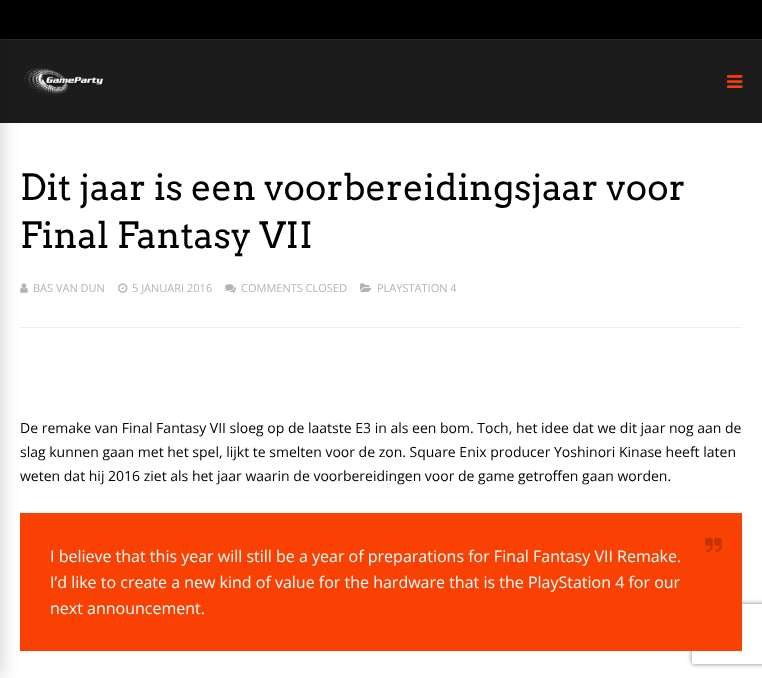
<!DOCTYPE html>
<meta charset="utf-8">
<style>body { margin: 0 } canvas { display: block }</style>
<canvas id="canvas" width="762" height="678"></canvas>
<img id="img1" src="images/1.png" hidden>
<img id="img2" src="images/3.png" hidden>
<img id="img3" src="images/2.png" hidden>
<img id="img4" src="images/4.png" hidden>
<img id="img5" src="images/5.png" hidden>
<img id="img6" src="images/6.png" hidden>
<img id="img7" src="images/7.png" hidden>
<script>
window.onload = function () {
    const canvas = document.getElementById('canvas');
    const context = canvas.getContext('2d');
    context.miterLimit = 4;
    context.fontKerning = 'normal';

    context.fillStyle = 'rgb(255, 255, 255)';
    context.fillRect(0, 0, 762, 678);
    context.fillStyle = 'rgb(0, 0, 0)';
    context.fillRect(0, 0, 762, 39);
    context.fillStyle = 'rgb(41, 41, 41)';
    context.fillRect(0, 39, 762, 1);
    context.fillStyle = 'rgb(28, 28, 28)';
    context.fillRect(0, 40, 762, 83);
    context.drawImage(document.getElementById('img1'), 24, 67, 80, 29);
    context.fillStyle = 'rgb(238, 238, 238)';
    context.fillRect(20, 327, 722, 1);
    context.drawImage(document.getElementById('img2'), 20, 283, 8, 10);
    context.save();
    context.beginPath();
    context.moveTo(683, 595);
    context.lineTo(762, 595);
    context.lineTo(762, 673);
    context.lineTo(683, 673);
    context.closePath();
    context.moveTo(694, 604);
    context.lineTo(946, 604);
    context.bezierCurveTo(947, 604, 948, 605, 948, 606);
    context.lineTo(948, 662);
    context.bezierCurveTo(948, 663, 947, 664, 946, 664);
    context.lineTo(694, 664);
    context.bezierCurveTo(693, 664, 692, 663, 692, 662);
    context.lineTo(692, 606);
    context.bezierCurveTo(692, 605, 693, 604, 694, 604);
    context.closePath();
    context.clip('evenodd');
    context.fillStyle = 'rgb(128, 128, 128)';
    context.filter = 'blur(2.5px)';
    context.beginPath();
    context.roundRect(692, 604, 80, 60, 2);
    context.fill();
    context.filter = 'none';
    context.restore();
    context.fillStyle = 'rgb(248, 65, 3)';
    context.fillRect(20, 513, 722, 138);
    context.fillStyle = 'rgba(0, 0, 0, 0.2)';
    context.filter = 'blur(10px)';
    context.beginPath();
    context.rect(-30, 0, 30, 678);
    context.fill();
    context.filter = 'none';
    context.drawImage(document.getElementById('img3'), 727, 75, 16, 13);
    context.drawImage(document.getElementById('img4'), 118, 283, 10, 10);
    context.drawImage(document.getElementById('img5'), 225, 284, 11, 9);
    context.drawImage(document.getElementById('img6'), 360, 283, 12, 9);
    context.drawImage(document.getElementById('img7'), 705, 537, 17, 15);
    context.font = '36px Arvo';
    context.fillStyle = 'rgb(0, 0, 0)';
    context.fillText('Dit jaar is een voorbereidingsjaar voor', 20, 200);
    context.fillText('Final Fantasy VII', 20, 248);
    context.font = '11px Open Sans';
    context.fillStyle = 'rgb(179, 179, 177)';
    context.fillText('BAS VAN DUN', 33, 292);
    context.fillText('5 JANUARI 2016', 132, 292);
    context.fillText('COMMENTS CLOSED', 241, 292);
    context.fillText('PLAYSTATION 4', 377, 292);
    context.font = '14px Open Sans';
    context.fillStyle = 'rgb(0, 0, 0)';
    context.fillText('De remake van Final Fantasy VII sloeg op de laatste E3 in als een bom. Toch, het idee dat we dit jaar nog aan de', 20, 433);
    context.fillText('slag kunnen gaan met het spel, lijkt te smelten voor de zon. Square Enix producer Yoshinori Kinase heeft laten', 20, 457);
    context.fillText('weten dat hij 2016 ziet als het jaar waarin de voorbereidingen voor de game getroffen gaan worden.', 20, 481);
    context.font = '16px Open Sans';
    context.fillStyle = 'rgb(255, 255, 255)';
    context.fillText('I believe that this year will still be a year of preparations for Final Fantasy VII Remake.', 50, 562);
    context.fillText('I’d like to create a new kind of value for the hardware that is the PlayStation 4 for our', 50, 588);
    context.fillText('next announcement.', 50, 614);
};
</script>
